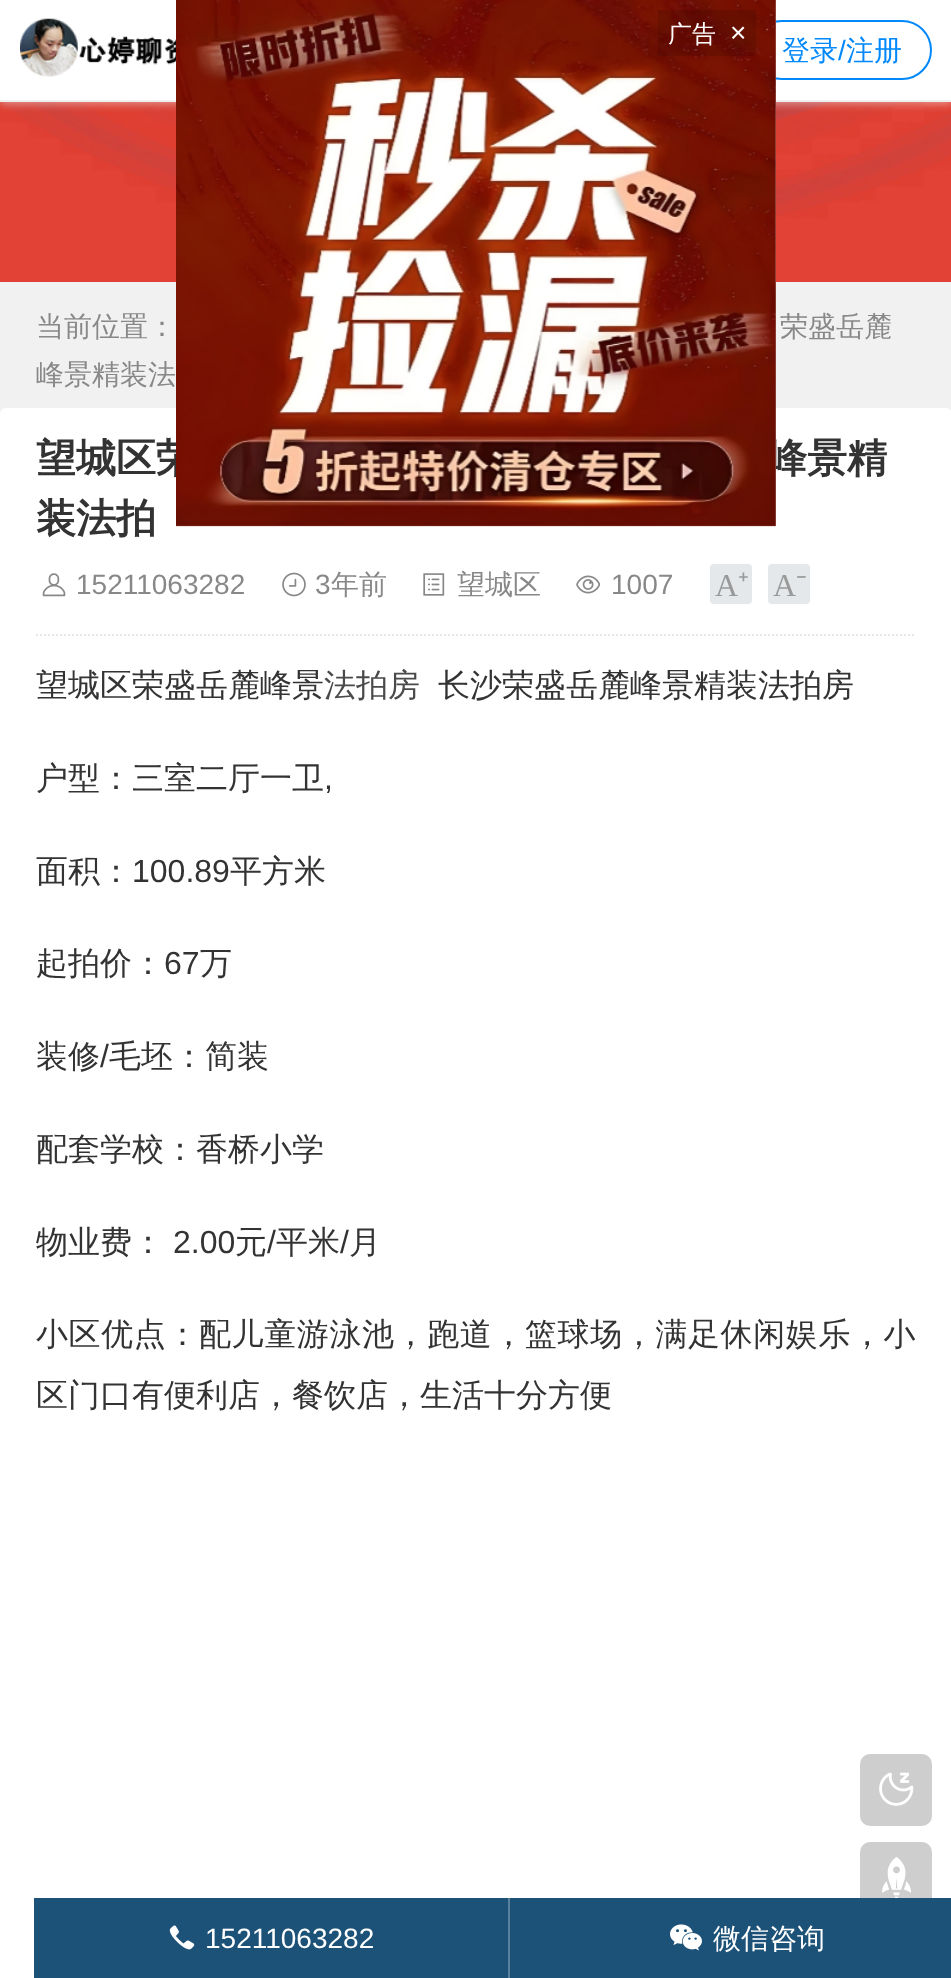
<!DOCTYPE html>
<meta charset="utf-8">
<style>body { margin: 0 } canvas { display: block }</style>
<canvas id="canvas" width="951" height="1978"></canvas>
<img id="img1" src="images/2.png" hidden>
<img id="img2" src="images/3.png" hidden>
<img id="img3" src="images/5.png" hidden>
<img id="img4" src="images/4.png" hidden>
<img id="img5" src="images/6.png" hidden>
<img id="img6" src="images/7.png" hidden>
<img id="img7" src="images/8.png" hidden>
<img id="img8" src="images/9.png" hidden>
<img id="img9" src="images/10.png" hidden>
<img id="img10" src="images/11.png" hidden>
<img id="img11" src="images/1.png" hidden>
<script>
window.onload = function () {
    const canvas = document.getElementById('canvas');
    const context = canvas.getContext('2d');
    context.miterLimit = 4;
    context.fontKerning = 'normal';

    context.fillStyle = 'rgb(241, 241, 241)';
    context.fillRect(0, 0, 951, 1978);
    context.fillStyle = 'rgb(255, 255, 255)';
    context.beginPath();
    context.roundRect(0, 408, 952, 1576, 6);
    context.fill();
    context.fillStyle = 'rgb(29, 82, 120)';
    context.fillRect(34, 1898, 474, 80);
    context.fillStyle = 'rgb(90, 129, 156)';
    context.fillRect(508, 1898, 2, 80);
    context.drawImage(document.getElementById('img1'), 169, 1925, 26, 25);
    context.fillStyle = 'rgb(206, 206, 206)';
    context.beginPath();
    context.roundRect(860, 1842, 72, 72, 10);
    context.fill();
    context.fillStyle = 'rgb(29, 82, 120)';
    context.fillRect(510, 1898, 441, 80);
    context.drawImage(document.getElementById('img2'), 670, 1924, 32, 27);
    context.drawImage(document.getElementById('img3'), 0, 102, 951, 180);
    context.fillStyle = 'rgba(238, 238, 238, 0.5)';
    context.filter = 'blur(4px)';
    context.beginPath();
    context.rect(0, 2, 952, 102);
    context.fill();
    context.filter = 'none';
    context.fillStyle = 'rgb(255, 255, 255)';
    context.fillRect(0, 0, 951, 100);
    context.drawImage(document.getElementById('img4'), 20, 18, 156, 59);
    context.beginPath();
    context.roundRect(753, 21, 178, 58, 29);
    context.strokeStyle = 'rgb(1, 136, 251)';
    context.lineWidth = 2;
    context.stroke();
    context.drawImage(document.getElementById('img5'), 42, 573, 24, 24);
    context.drawImage(document.getElementById('img6'), 282, 572, 24, 25);
    context.drawImage(document.getElementById('img7'), 423, 573, 22, 23);
    context.drawImage(document.getElementById('img8'), 576, 575, 25, 19);
    context.fillStyle = 'rgb(228, 232, 235)';
    context.beginPath();
    context.roundRect(710, 564, 42, 40, 4);
    context.fill();
    context.beginPath();
    context.roundRect(768, 564, 42, 40, 4);
    context.fill();
    context.beginPath();
    context.moveTo(36, 635);
    context.lineTo(916, 635);
    context.strokeStyle = 'rgb(228, 232, 235)';
    context.setLineDash([2, 2]);
    context.stroke();
    context.fillStyle = 'rgb(206, 206, 206)';
    context.beginPath();
    context.roundRect(860, 1754, 72, 72, 10);
    context.fill();
    context.drawImage(document.getElementById('img9'), 879, 1772, 35, 34);
    context.drawImage(document.getElementById('img10'), 882, 1857, 29, 41);
    context.font = '28px Liberation Sans';
    context.fillStyle = 'rgb(255, 255, 255)';
    context.fillText('15211063282', 205, 1948);
    context.font = '500 28px WenQuanYi Zen Hei';
    context.fillText('微信咨询', 713, 1948);
    context.fillStyle = 'rgb(1, 136, 251)';
    context.fillText('登录', 782, 60);
    context.font = '28px Liberation Sans';
    context.fillText('/', 838, 60);
    context.font = '500 28px WenQuanYi Zen Hei';
    context.fillText('注册', 846, 60);
    context.fillStyle = 'rgb(136, 136, 136)';
    context.fillText('当前位置：', 36, 336);
    context.fillText('荣盛岳麓', 780, 336);
    context.fillText('峰景精装法', 36, 384);
    context.font = 'bold 40px WenQuanYi Zen Hei';
    context.fillStyle = 'rgb(51, 51, 51)';
    context.fillText('望城区荣', 36, 472);
    context.fillText('峰景精', 767, 472);
    context.fillStyle = 'rgb(255, 255, 255)';
    context.fillRect(176, 20, 600, 457);
    context.drawImage(document.getElementById('img11'), 176, 0, 600, 527);
    context.fillStyle = 'rgba(0, 0, 0, 0.1)';
    context.fillRect(658, 10, 98, 46);
    context.font = '28px Liberation Sans';
    context.fillStyle = 'rgb(255, 255, 255)';
    context.fillText('×', 730, 42);
    context.font = '500 24px WenQuanYi Zen Hei';
    context.fillText('广告', 668, 42);
    context.font = 'bold 40px WenQuanYi Zen Hei';
    context.fillStyle = 'rgb(51, 51, 51)';
    context.fillText('装法拍', 36, 532);
    context.font = '28px Liberation Sans';
    context.fillStyle = 'rgb(136, 136, 136)';
    context.fillText('15211063282', 76, 594);
    context.fillText('3', 315, 594);
    context.font = '500 28px WenQuanYi Zen Hei';
    context.fillText('年前', 331, 594);
    context.fillText('望城区', 457, 594);
    context.font = '28px Liberation Sans';
    context.fillText('1007', 611, 594);
    context.font = '32px Liberation Serif';
    context.fillStyle = 'rgb(153, 153, 153)';
    context.fillText('A', 715, 596);
    context.font = '32px Noto Sans';
    context.fillText('⁺', 738, 596);
    context.font = '32px Liberation Serif';
    context.fillText('A', 773, 596);
    context.font = '32px Noto Sans';
    context.fillText('⁻', 796, 596);
    context.font = '500 32px WenQuanYi Zen Hei';
    context.fillStyle = 'rgb(51, 51, 51)';
    context.fillText('望城区荣盛岳麓峰景', 36, 696);
    context.fillStyle = 'rgb(74, 74, 74)';
    context.fillText('法拍房', 324, 696);
    context.fillStyle = 'rgb(51, 51, 51)';
    context.fillText('长沙荣盛岳麓峰景精装法拍房', 438, 696);
    context.fillText('户型：三室二厅一卫', 36, 789);
    context.font = '32px Liberation Sans';
    context.fillText(',', 324, 789);
    context.font = '500 32px WenQuanYi Zen Hei';
    context.fillText('面积：', 36, 882);
    context.font = '32px Liberation Sans';
    context.fillText('100.89', 132, 882);
    context.font = '500 32px WenQuanYi Zen Hei';
    context.fillText('平方米', 230, 882);
    context.fillText('起拍价：', 36, 974);
    context.font = '32px Liberation Sans';
    context.fillText('67', 164, 974);
    context.font = '500 32px WenQuanYi Zen Hei';
    context.fillText('万', 200, 974);
    context.fillText('装修', 36, 1067);
    context.font = '32px Liberation Sans';
    context.fillText('/', 100, 1067);
    context.font = '500 32px WenQuanYi Zen Hei';
    context.fillText('毛坯：简装', 109, 1067);
    context.fillText('配套学校：香桥小学', 36, 1160);
    context.fillText('物业费：', 36, 1253);
    context.font = '32px Liberation Sans';
    context.fillText('2.00', 173, 1253);
    context.font = '500 32px WenQuanYi Zen Hei';
    context.fillText('元', 235, 1253);
    context.font = '32px Liberation Sans';
    context.fillText('/', 267, 1253);
    context.font = '500 32px WenQuanYi Zen Hei';
    context.fillText('平米', 276, 1253);
    context.font = '32px Liberation Sans';
    context.fillText('/', 340, 1253);
    context.font = '500 32px WenQuanYi Zen Hei';
    context.fillText('月', 349, 1253);
    context.letterSpacing = '0.6px';
    context.fillText('小区优点：配儿童游泳池，跑道，篮球场，满足休闲娱乐，小', 36, 1345);
    context.letterSpacing = '0px';
    context.fillText('区门口有便利店，餐饮店，生活十分方便', 36, 1406);
};
</script>
